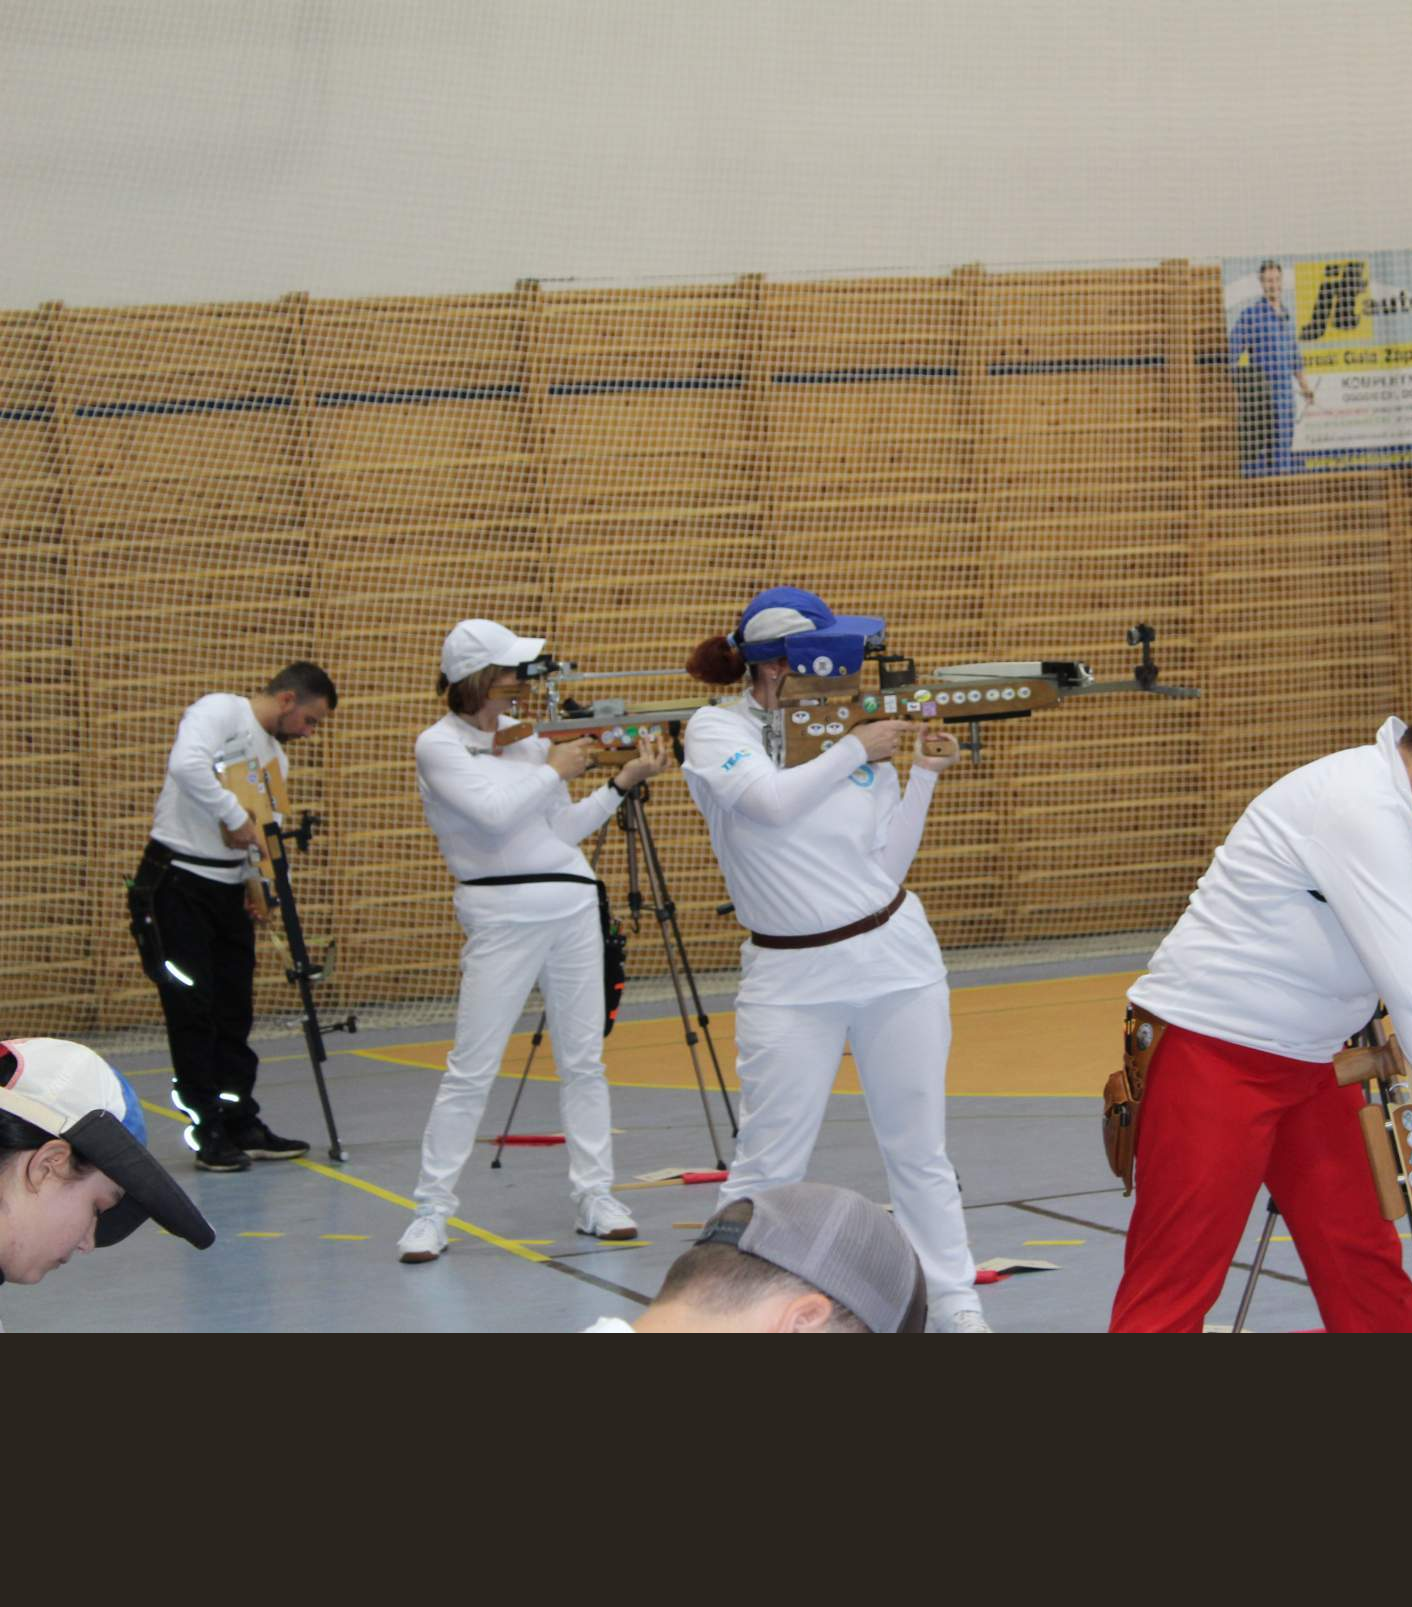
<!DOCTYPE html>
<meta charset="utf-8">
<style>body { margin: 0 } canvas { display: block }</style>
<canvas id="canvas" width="1412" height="1607"></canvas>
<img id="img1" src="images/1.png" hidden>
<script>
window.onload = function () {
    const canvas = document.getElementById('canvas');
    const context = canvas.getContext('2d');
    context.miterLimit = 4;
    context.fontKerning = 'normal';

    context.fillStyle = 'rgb(41, 36, 30)';
    context.fillRect(0, 0, 1412, 1607);
    context.drawImage(document.getElementById('img1'), 0, 0, 1412, 1333);
};
</script>
